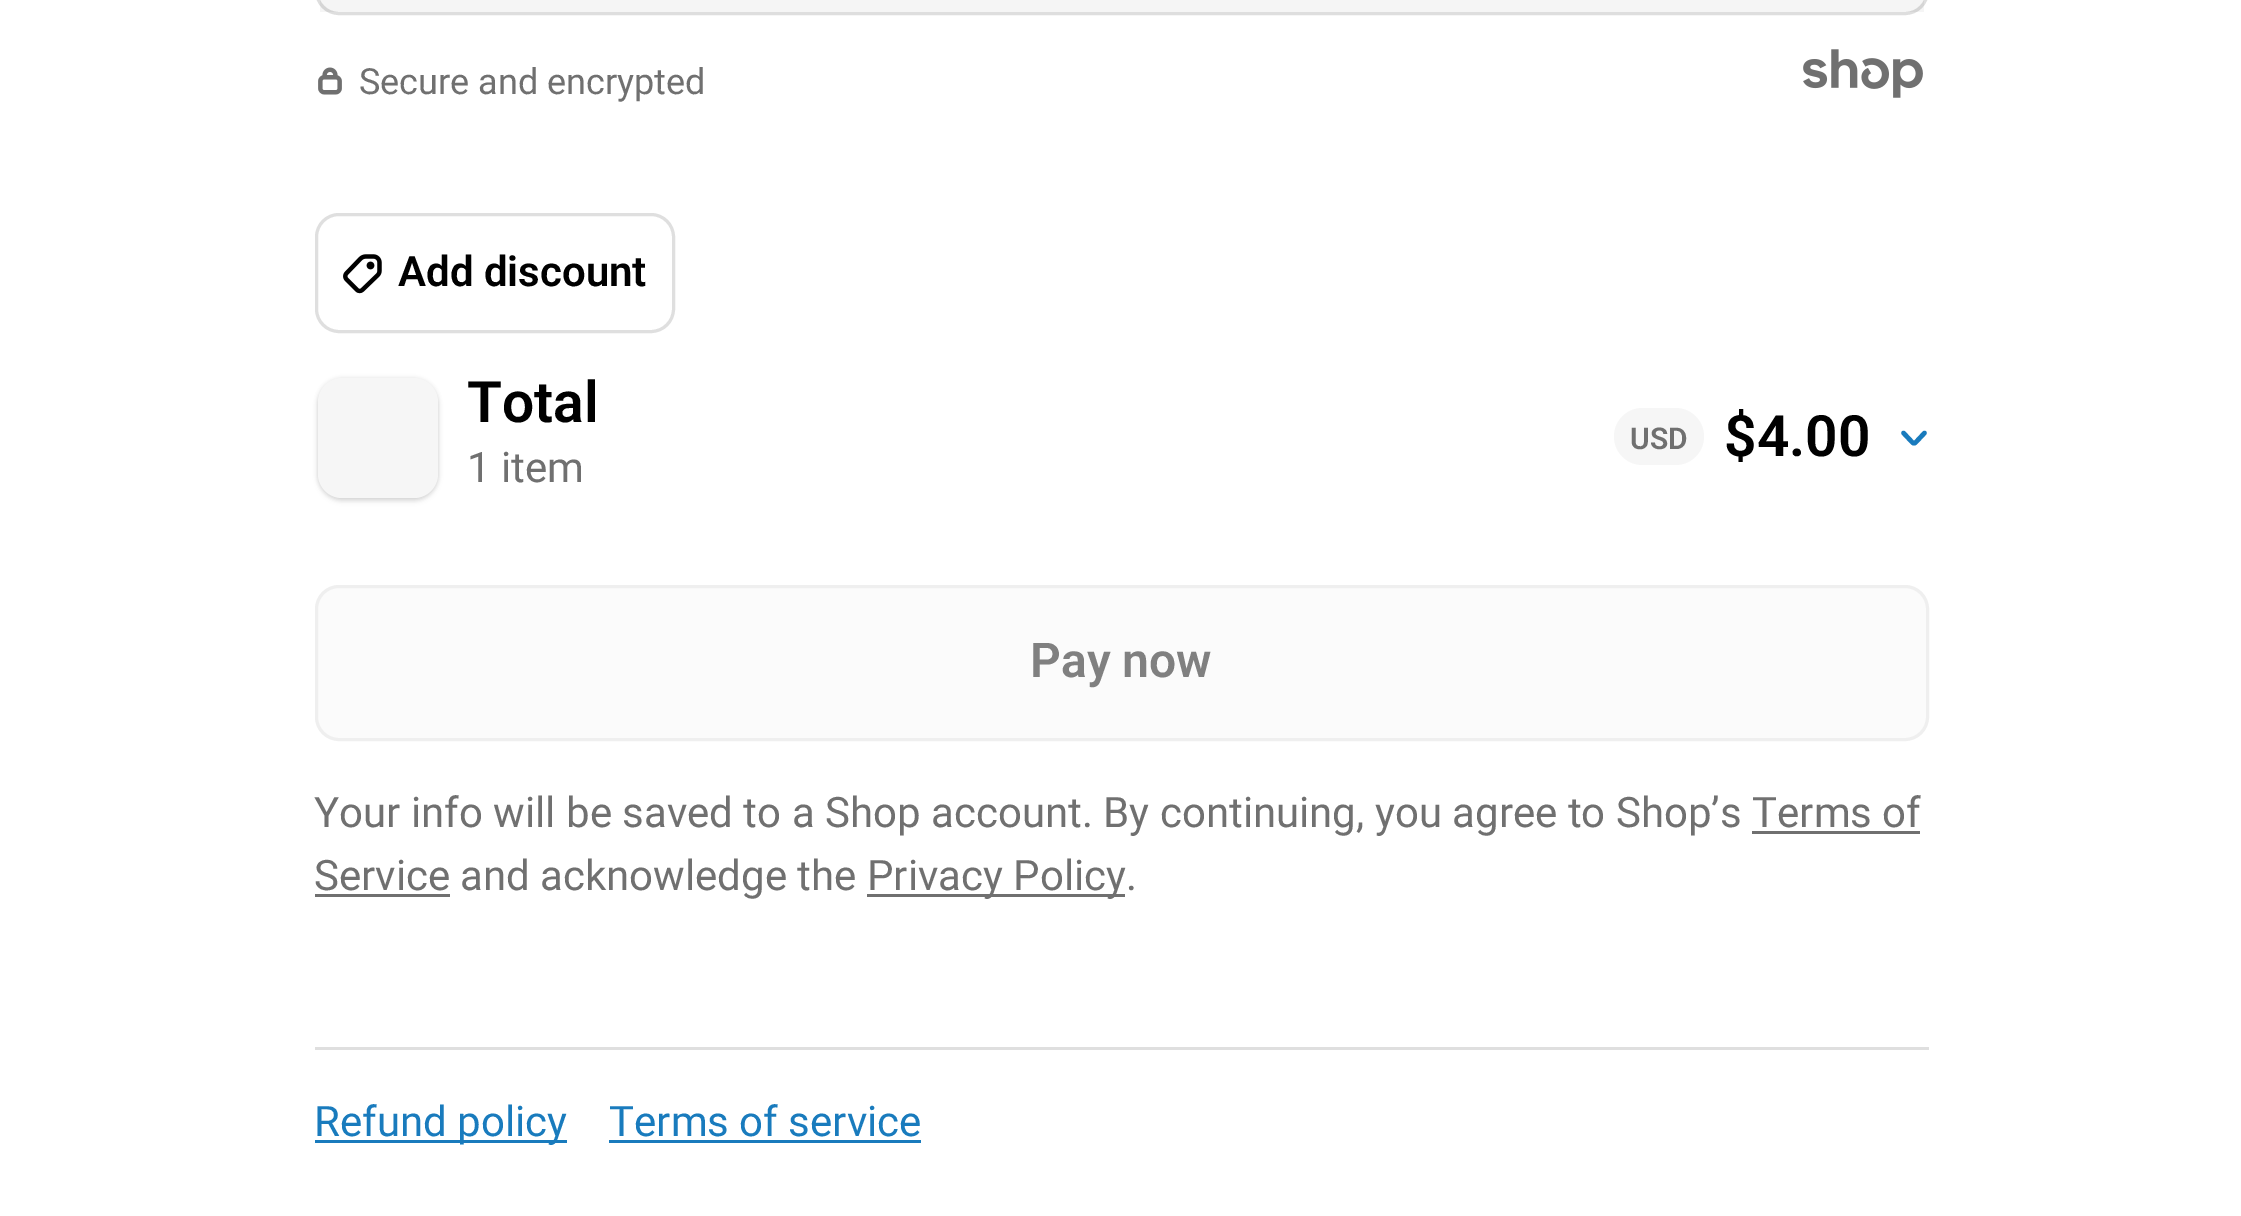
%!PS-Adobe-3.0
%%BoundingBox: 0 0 2241 1216
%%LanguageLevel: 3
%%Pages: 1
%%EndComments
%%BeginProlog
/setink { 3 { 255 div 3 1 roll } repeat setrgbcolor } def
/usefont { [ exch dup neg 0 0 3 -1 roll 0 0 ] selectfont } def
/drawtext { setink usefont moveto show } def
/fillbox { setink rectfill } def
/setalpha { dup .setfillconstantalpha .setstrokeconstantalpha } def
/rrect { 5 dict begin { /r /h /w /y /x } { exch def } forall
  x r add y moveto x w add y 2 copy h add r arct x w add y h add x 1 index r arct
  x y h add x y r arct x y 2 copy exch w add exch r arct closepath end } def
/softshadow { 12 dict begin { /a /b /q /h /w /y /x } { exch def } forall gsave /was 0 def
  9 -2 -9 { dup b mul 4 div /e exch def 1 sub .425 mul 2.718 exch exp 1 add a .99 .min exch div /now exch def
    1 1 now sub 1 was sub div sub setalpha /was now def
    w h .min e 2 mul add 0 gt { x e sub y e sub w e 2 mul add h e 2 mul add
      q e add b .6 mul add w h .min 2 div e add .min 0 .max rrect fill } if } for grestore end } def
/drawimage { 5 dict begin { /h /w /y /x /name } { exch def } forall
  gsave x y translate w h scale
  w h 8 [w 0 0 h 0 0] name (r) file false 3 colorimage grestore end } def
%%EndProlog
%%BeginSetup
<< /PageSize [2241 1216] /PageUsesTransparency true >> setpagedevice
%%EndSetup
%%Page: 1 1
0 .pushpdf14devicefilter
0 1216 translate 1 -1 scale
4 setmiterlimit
0 0 2241 1216 255 255 255 fillbox
222 222 222 setink
3 setlinewidth
316.5 -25.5 1611 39 22.5 rrect stroke
0.04 setalpha
320 0 1604 12 0 0 0 fillbox
1 setalpha
(assets/img1.rgb) 318 67 24 28 drawimage
(Secure and encrypted) 359 94 /Roboto-Regular 36 112 112 112 drawtext
(assets/img2.rgb) 1803 49 120 49 drawimage
223 223 223 setink
316.5 214.5 357 117 22.5 rrect stroke
(assets/img3.rgb) 343 254 39 40 drawimage
(Add discount) 398 286 /Roboto-SemiBold 42 0 0 0 drawtext
318 378 120 120 24 2 0.09 softshadow
318 381 120 120 24 2.5 0.12 softshadow
246 246 246 setink
318 378 120 120 24 rrect fill
(Total) 467 422 /Roboto-SemiBold 57 0 0 0 drawtext
(1 item) 467 482 /Roboto-Regular 42 112 112 112 drawtext
246 246 246 setink
1614 408 90 57 28.5 rrect fill
(USD) 1630 449 /Roboto-SemiBold 30 112 112 112 drawtext
($4.00) 1724 456 /Roboto-SemiBold 57 0 0 0 drawtext
25 123 189 setink
4.5 setlinewidth
1 setlinecap
1 setlinejoin
1924.5 433 moveto 1916.5 441.5 lineto 1914 444 1914 444 1911.5 441.5 curveto 1903.5 433 lineto stroke
251 251 251 setink
316.5 586.5 1611 153 22.5 rrect gsave fill grestore
239 239 239 setink
3 setlinewidth
0 setlinecap
0 setlinejoin
stroke
(Pay now) 1030 677 /Roboto-SemiBold 48 128 128 128 drawtext
(Your info will be saved to a Shop account. By continuing, you agree to Shop’s Terms of) 314 827 /Roboto-Regular 42 112 112 112 drawtext
(Service) 314 890 /Roboto-Regular 42 112 112 112 drawtext
1752 831 168 3 112 112 112 fillbox
315 894 135 3 112 112 112 fillbox
(and acknowledge the) 460 890 /Roboto-Regular 42 112 112 112 drawtext
867 894 258 3 112 112 112 fillbox
(Privacy Policy) 867 890 /Roboto-Regular 42 112 112 112 drawtext
(.) 1126 890 /Roboto-Regular 42 112 112 112 drawtext
315 1047 1614 3 223 223 223 fillbox
315 1140 252 3 25 123 189 fillbox
(Refund policy) 314 1136 /Roboto-Regular 42 25 123 189 drawtext
(Terms of service) 609 1136 /Roboto-Regular 42 25 123 189 drawtext
609 1140 312 3 25 123 189 fillbox
.poppdf14devicefilter showpage
%%EOF
